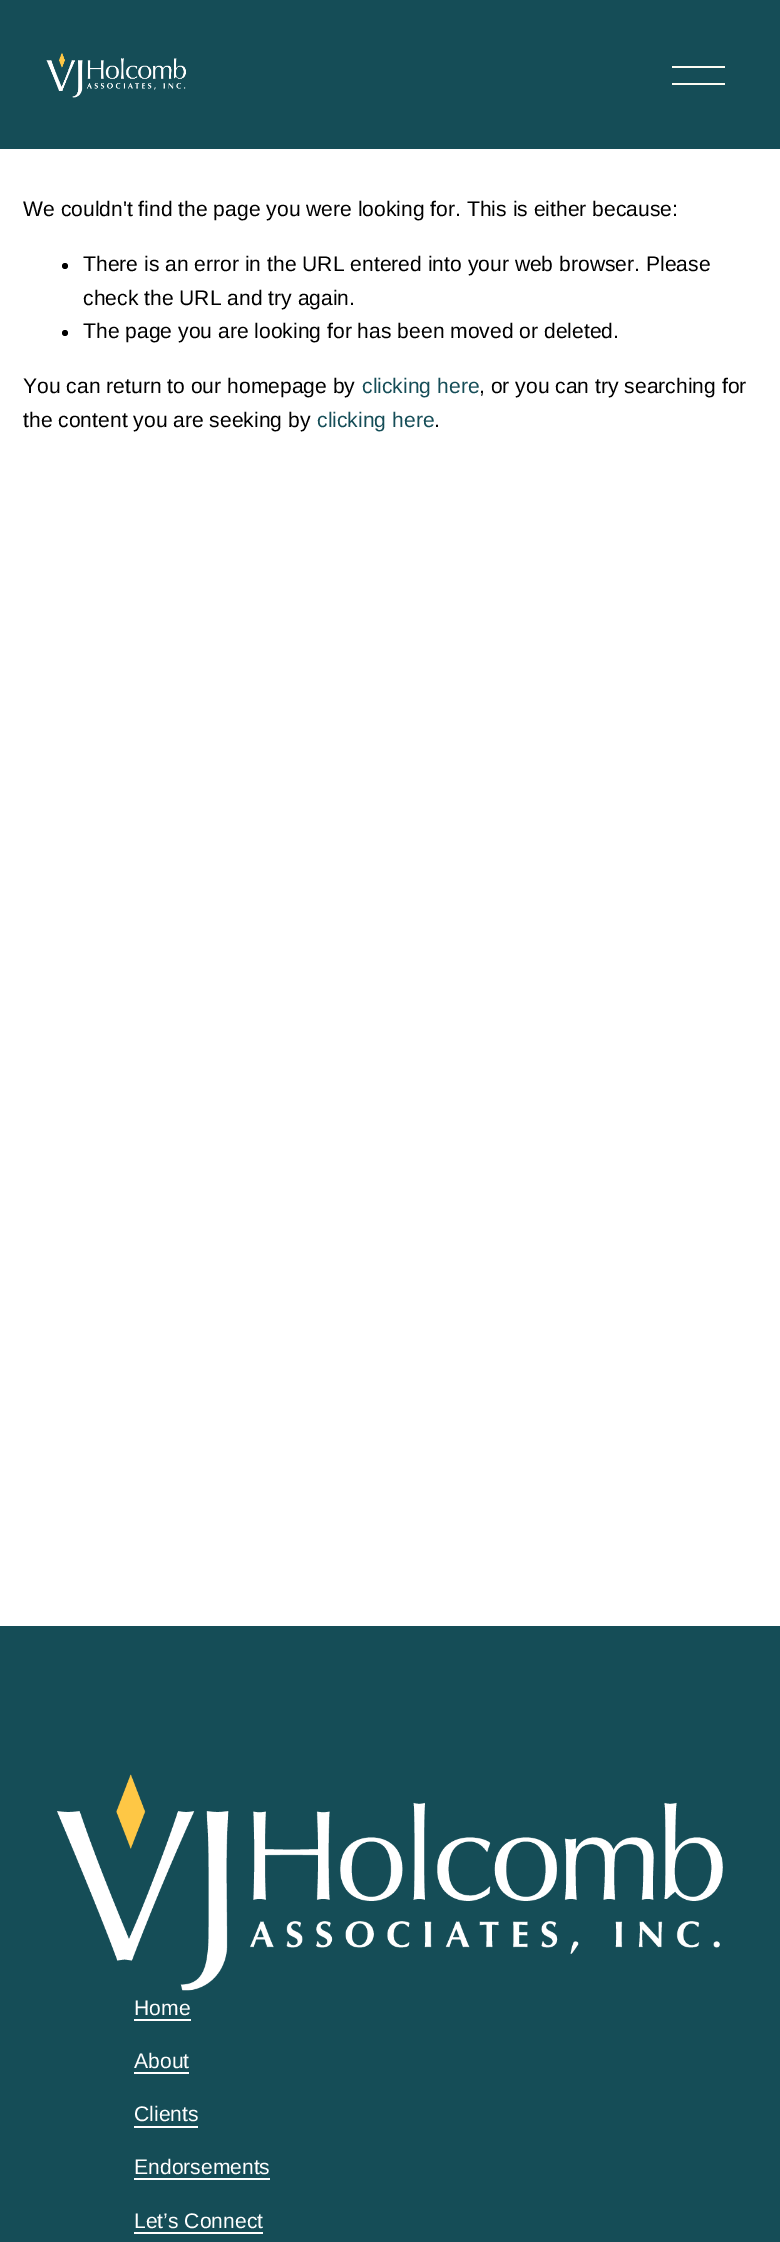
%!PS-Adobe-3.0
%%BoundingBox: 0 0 780 2242
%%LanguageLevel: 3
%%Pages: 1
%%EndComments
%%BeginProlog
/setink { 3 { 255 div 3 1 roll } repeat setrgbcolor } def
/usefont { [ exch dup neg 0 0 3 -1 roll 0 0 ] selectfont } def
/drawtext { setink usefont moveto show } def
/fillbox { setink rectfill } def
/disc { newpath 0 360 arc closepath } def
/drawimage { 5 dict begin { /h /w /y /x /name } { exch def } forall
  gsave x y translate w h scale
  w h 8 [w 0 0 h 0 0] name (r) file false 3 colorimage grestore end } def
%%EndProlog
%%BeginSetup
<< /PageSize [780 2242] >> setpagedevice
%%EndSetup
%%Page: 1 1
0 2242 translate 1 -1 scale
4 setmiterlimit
0 0 780 2242 255 255 255 fillbox
0 0 780 149 21 77 87 fillbox
(assets/img1.rgb) 46 52 140 46 drawimage
672 66 53 2 252 252 243 fillbox
672 83 53 2 252 252 243 fillbox
(We couldn't find the page you were looking for. This is either because:) 23 216 /LiberationSans-Regular 21.1 0 0 0 drawtext
65 266 3 disc fill
(There is an error in the URL entered into your web browser. Please) 83 271 /LiberationSans-Regular 21.1 0 0 0 drawtext
(check the URL and try again.) 83 305 /LiberationSans-Regular 21.1 0 0 0 drawtext
65 333 3 disc fill
(The page you are looking for has been moved or deleted.) 83 338 /LiberationSans-Regular 21.1 0 0 0 drawtext
(You can return to our homepage by) 23 393 /LiberationSans-Regular 21.1 0 0 0 drawtext
(clicking here) 362 393 /LiberationSans-Regular 21.1 21 77 87 drawtext
(, or you can try searching for) 479 393 /LiberationSans-Regular 21.1 0 0 0 drawtext
(the content you are seeking by) 23 427 /LiberationSans-Regular 21.1 0 0 0 drawtext
(clicking here) 317 427 /LiberationSans-Regular 21.1 21 77 87 drawtext
(.) 434 427 /LiberationSans-Regular 21.1 0 0 0 drawtext
0 1626 780 616 21 77 87 fillbox
(assets/img2.rgb) 57 1774 666 217 drawimage
(Home) 134 2015 /LiberationSans-Regular 21.1 255 255 255 drawtext
134 2019 57 2 255 255 255 fillbox
(About) 134 2068 /LiberationSans-Regular 21.1 255 255 255 drawtext
134 2072 55 2 255 255 255 fillbox
(Clients) 134 2121 /LiberationSans-Regular 21.1 255 255 255 drawtext
134 2126 64 2 255 255 255 fillbox
(Endorsements) 134 2174 /LiberationSans-Regular 21.1 255 255 255 drawtext
134 2178 136 2 255 255 255 fillbox
(Let’s Connect) 134 2228 /LiberationSans-Regular 21.1 255 255 255 drawtext
134 2232 129 2 255 255 255 fillbox
showpage
%%EOF
